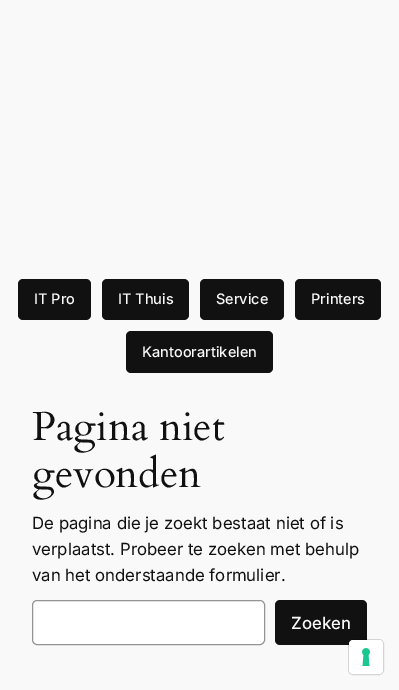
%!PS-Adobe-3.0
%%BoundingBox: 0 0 399 690
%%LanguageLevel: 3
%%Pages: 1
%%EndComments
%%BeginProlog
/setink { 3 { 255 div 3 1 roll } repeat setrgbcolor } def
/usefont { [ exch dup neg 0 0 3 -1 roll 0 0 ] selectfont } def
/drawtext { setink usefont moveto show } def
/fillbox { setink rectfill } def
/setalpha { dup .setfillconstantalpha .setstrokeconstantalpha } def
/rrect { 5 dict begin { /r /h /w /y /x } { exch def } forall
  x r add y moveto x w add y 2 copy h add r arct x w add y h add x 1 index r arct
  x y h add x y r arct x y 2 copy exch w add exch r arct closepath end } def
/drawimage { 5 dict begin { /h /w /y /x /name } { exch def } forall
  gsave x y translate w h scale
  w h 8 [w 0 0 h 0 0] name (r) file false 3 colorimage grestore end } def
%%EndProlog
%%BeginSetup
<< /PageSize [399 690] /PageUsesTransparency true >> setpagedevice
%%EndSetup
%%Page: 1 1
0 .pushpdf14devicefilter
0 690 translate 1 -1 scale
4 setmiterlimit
0 0 399 690 249 249 249 fillbox
17 17 17 setink
18 279 73 41 5 rrect fill
(IT Pro) 34 304 /Inter-Medium 14.5 249 249 249 drawtext
17 17 17 setink
102 279 87 41 5 rrect fill
(IT Thuis) 118 304 /Inter-Medium 14.5 249 249 249 drawtext
17 17 17 setink
200 279 84 41 5 rrect fill
(Service) 216 304 /Inter-Medium 14.5 249 249 249 drawtext
17 17 17 setink
295 279 86 41 5 rrect fill
(Printers) 311 304 /Inter-Medium 14.5 249 249 249 drawtext
17 17 17 setink
126 331 147 42 5 rrect fill
(Kantoorartikelen) 142 357 /Inter-Medium 14.5 249 249 249 drawtext
(Pagina niet) 32 440 /Cardo-Regular 40.5 17 17 17 drawtext
(gevonden) 32 487 /Cardo-Regular 40.5 17 17 17 drawtext
(De pagina die je zoekt bestaat niet of is) 32 529 /Inter-Regular 16.75 17 17 17 drawtext
(verplaatst. Probeer te zoeken met behulp) 32 555 /Inter-Regular 16.75 17 17 17 drawtext
(van het onderstaande formulier.) 32 581 /Inter-Regular 16.75 17 17 17 drawtext
255 255 255 setink
32.5 600.5 232 44 4.5 rrect gsave fill grestore
148 148 148 setink
stroke
17 17 17 setink
275 600 92 45 5 rrect fill
(Zoeken) 291 629 /Inter-Medium 16.75 249 249 249 drawtext
0.15 setalpha
0 0 0 setink
348.5 639.5 35 35 4.5 rrect stroke
1 setalpha
255 255 255 setink
349 640 34 34 4 rrect fill
(assets/img1.rgb) 362 648 8 18 drawimage
.poppdf14devicefilter showpage
%%EOF
